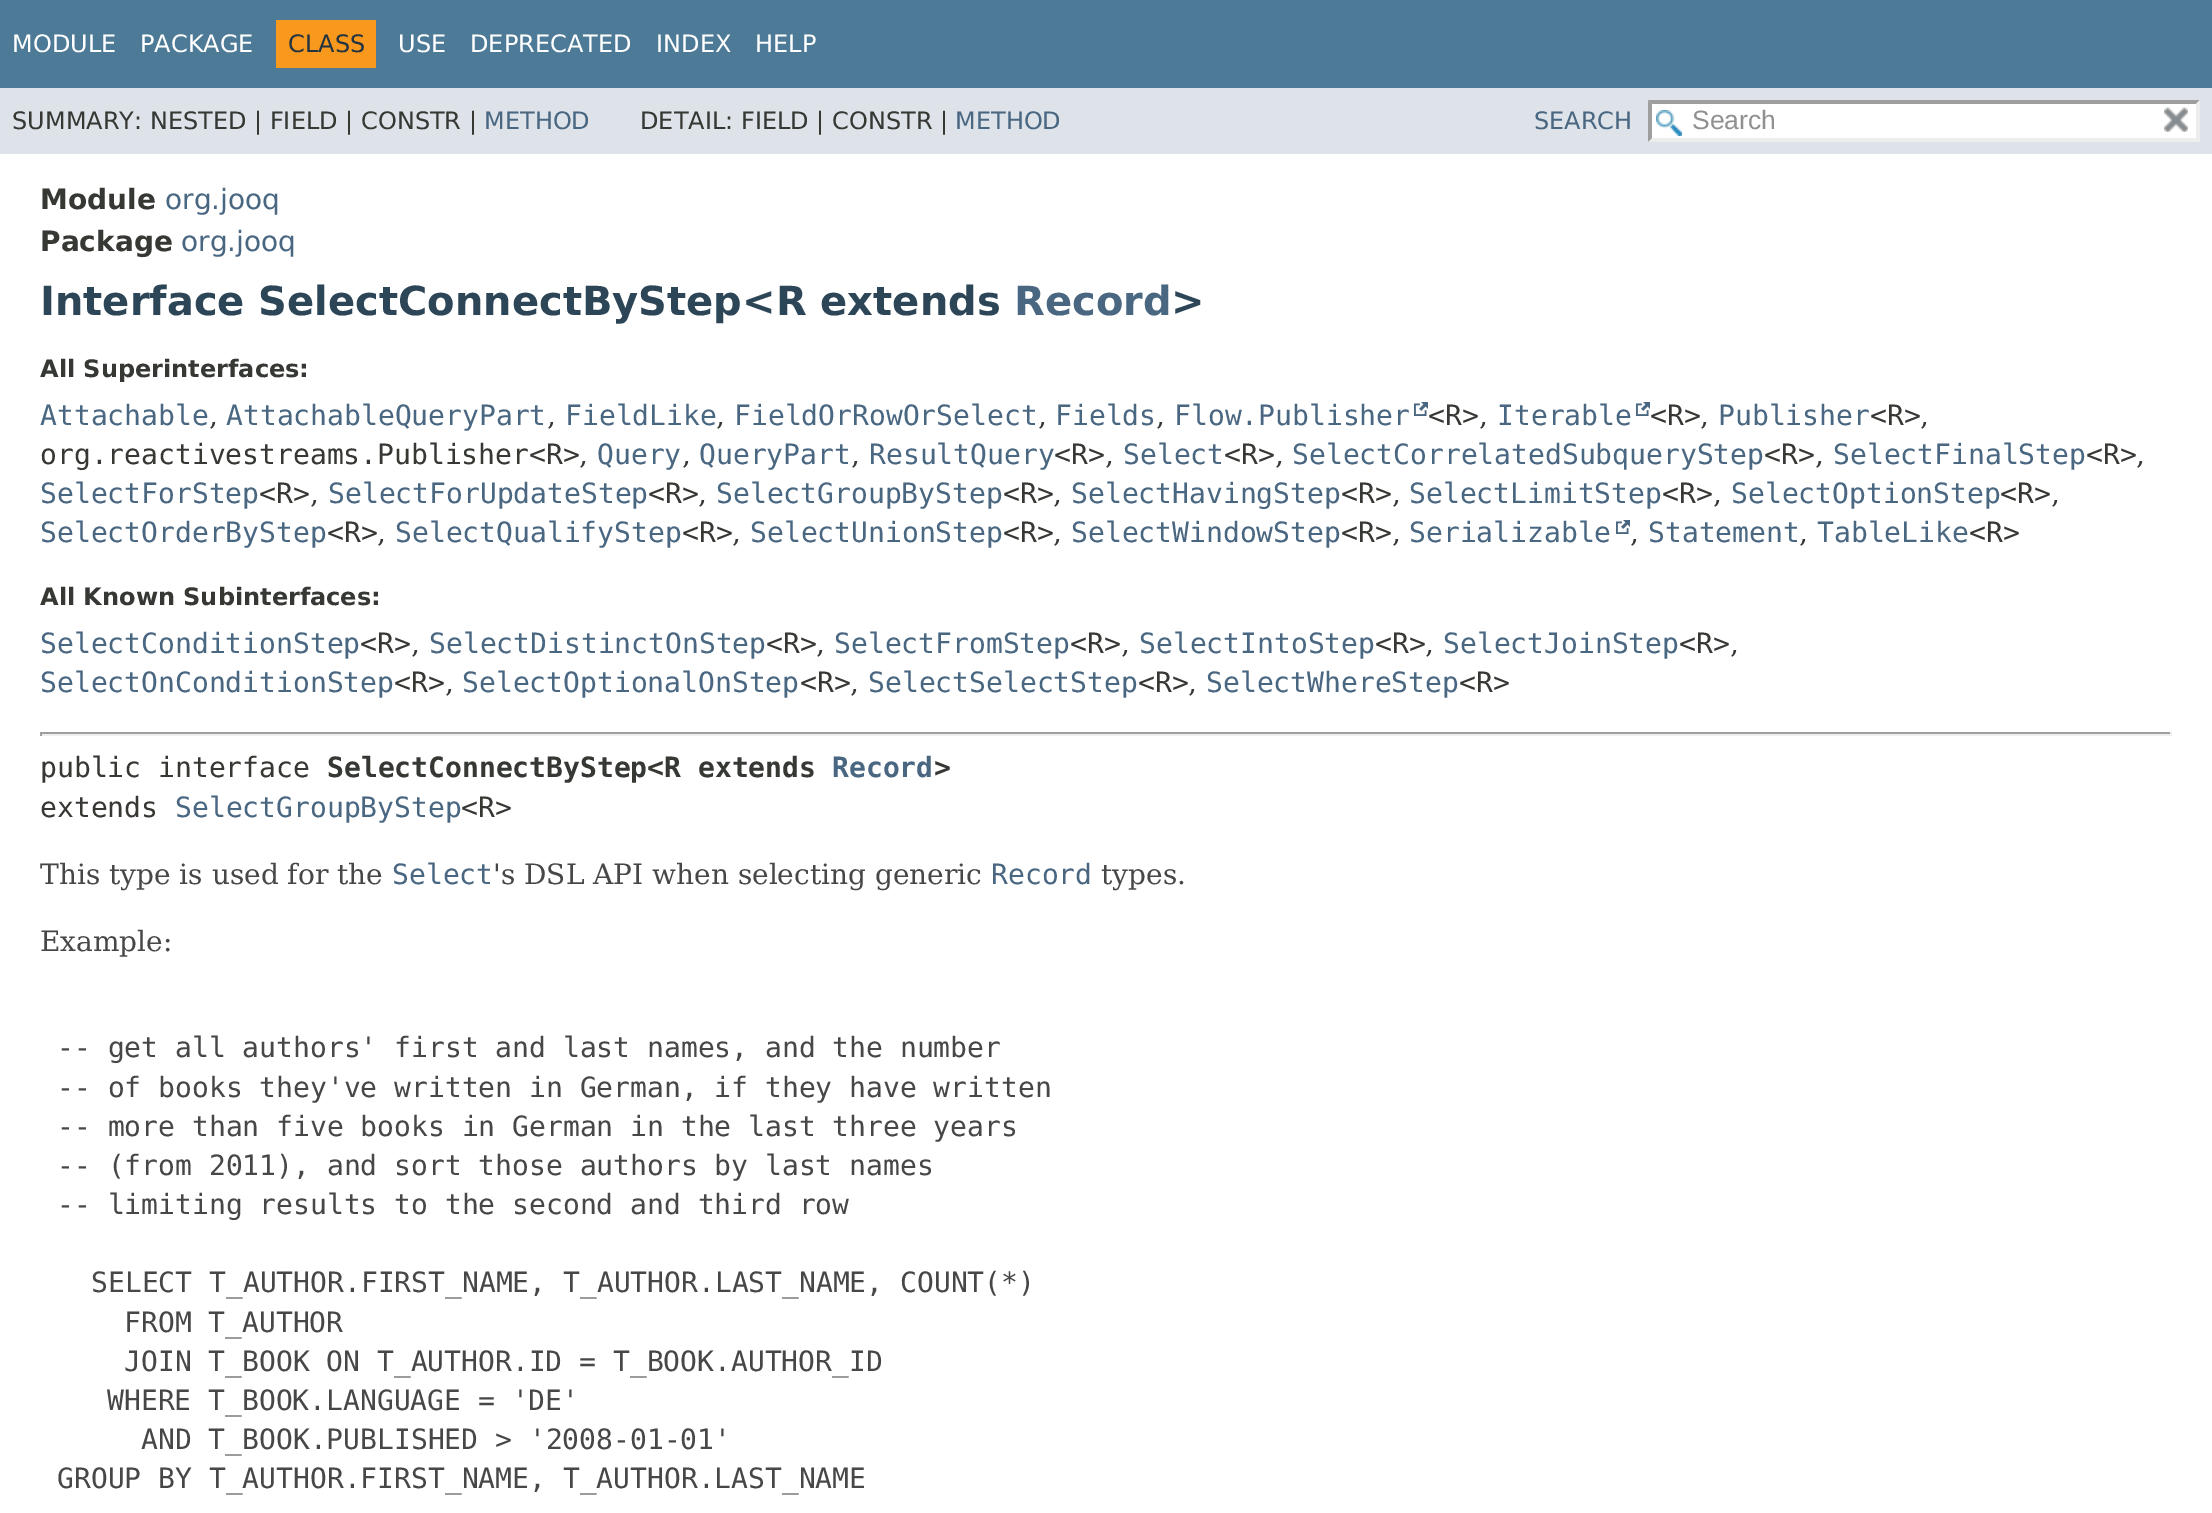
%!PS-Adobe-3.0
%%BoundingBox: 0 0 2212 1513
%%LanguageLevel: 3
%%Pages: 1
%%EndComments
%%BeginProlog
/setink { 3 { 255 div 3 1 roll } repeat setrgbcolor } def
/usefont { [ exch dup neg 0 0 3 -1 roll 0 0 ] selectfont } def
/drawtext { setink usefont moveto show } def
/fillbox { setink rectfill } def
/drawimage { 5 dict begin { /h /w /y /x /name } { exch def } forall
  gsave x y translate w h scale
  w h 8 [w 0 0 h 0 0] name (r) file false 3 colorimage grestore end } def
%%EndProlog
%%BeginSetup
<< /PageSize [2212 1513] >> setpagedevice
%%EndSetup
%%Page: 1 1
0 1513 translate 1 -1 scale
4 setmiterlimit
0 0 2212 1513 255 255 255 fillbox
0 0 2212 88 77 122 151 fillbox
(MODULE) 12 52 /DejaVuSans-Regular 24 255 255 255 drawtext
(PACKAGE) 140 52 /DejaVuSans-Regular 24 255 255 255 drawtext
276 20 100 48 248 152 29 fillbox
(CLASS) 288 52 /DejaVuSans-Regular 24 37 52 65 drawtext
(USE) 398 52 /DejaVuSans-Regular 24 255 255 255 drawtext
(DEPRECATED) 470 52 /DejaVuSans-Regular 24 255 255 255 drawtext
(INDEX) 656 52 /DejaVuSans-Regular 24 255 255 255 drawtext
(HELP) 755 52 /DejaVuSans-Regular 24 255 255 255 drawtext
0 88 2212 66 222 227 233 fillbox
(SUMMARY: NESTED | FIELD | CONSTR |) 12 129 /DejaVuSans-Regular 24 53 56 51 drawtext
(METHOD) 484 129 /DejaVuSans-Regular 24 74 103 130 drawtext
(DETAIL: FIELD | CONSTR |) 640 129 /DejaVuSans-Regular 24 53 56 51 drawtext
(METHOD) 955 129 /DejaVuSans-Regular 24 74 103 130 drawtext
(SEARCH) 1534 129 /DejaVuSans-Regular 24 74 103 130 drawtext
1648 100 552 42 255 255 255 fillbox
(assets/img1.rgb) 1656 110 26 26 drawimage
158 158 158 setink
1648 100 moveto 2200 100 lineto 2196 104 lineto 1652 104 lineto closepath fill
237 237 237 setink
2200 100 moveto 2200 142 lineto 2196 138 lineto 2196 104 lineto closepath fill
2200 142 moveto 1648 142 lineto 1652 138 lineto 2196 138 lineto closepath fill
158 158 158 setink
1648 142 moveto 1648 100 lineto 1652 104 lineto 1652 138 lineto closepath fill
(Search) 1692 129 /LiberationSans-Regular 26.5 144 144 144 drawtext
(assets/img2.rgb) 2164 107 24 25 drawimage
(Module) 40 209 /DejaVuSans-Bold 28 53 56 51 drawtext
(org.jooq) 165 209 /DejaVuSans-Regular 28 74 103 130 drawtext
(Package) 40 251 /DejaVuSans-Bold 28 53 56 51 drawtext
(org.jooq) 181 251 /DejaVuSans-Regular 28 74 103 130 drawtext
(Interface SelectConnectByStep<R extends) 40 315 /DejaVuSans-Bold 40 44 69 87 drawtext
(Record) 1014 315 /DejaVuSans-Bold 40 74 103 130 drawtext
(>) 1171 315 /DejaVuSans-Bold 40 44 69 87 drawtext
(All Superinterfaces:) 40 377 /DejaVuSans-Bold 24 53 56 51 drawtext
(Attachable) 40 425 /DejaVuSansMono-Regular 28 74 103 130 drawtext
(,) 209 425 /DejaVuSerif-Regular 28 53 56 51 drawtext
(AttachableQueryPart) 226 425 /DejaVuSansMono-Regular 28 74 103 130 drawtext
(,) 547 425 /DejaVuSerif-Regular 28 53 56 51 drawtext
(FieldLike) 565 425 /DejaVuSansMono-Regular 28 74 103 130 drawtext
(,) 716 425 /DejaVuSerif-Regular 28 53 56 51 drawtext
(FieldOrRowOrSelect) 734 425 /DejaVuSansMono-Regular 28 74 103 130 drawtext
(,) 1038 425 /DejaVuSerif-Regular 28 53 56 51 drawtext
(Fields) 1055 425 /DejaVuSansMono-Regular 28 74 103 130 drawtext
(,) 1156 425 /DejaVuSerif-Regular 28 53 56 51 drawtext
(Flow.Publisher) 1174 425 /DejaVuSansMono-Regular 28 74 103 130 drawtext
(assets/img3.rgb) 1414 402 14 14 drawimage
(<R>) 1428 425 /DejaVuSansMono-Regular 28 53 56 51 drawtext
(,) 1479 425 /DejaVuSerif-Regular 28 53 56 51 drawtext
(Iterable) 1497 425 /DejaVuSansMono-Regular 28 74 103 130 drawtext
(assets/img3.rgb) 1636 402 14 14 drawimage
(<R>) 1650 425 /DejaVuSansMono-Regular 28 53 56 51 drawtext
(,) 1700 425 /DejaVuSerif-Regular 28 53 56 51 drawtext
(Publisher) 1718 425 /DejaVuSansMono-Regular 28 74 103 130 drawtext
(<R>) 1870 425 /DejaVuSansMono-Regular 28 53 56 51 drawtext
(,) 1920 425 /DejaVuSerif-Regular 28 53 56 51 drawtext
(org.reactivestreams.Publisher<R>) 40 464 /DejaVuSansMono-Regular 28 53 56 51 drawtext
(,) 579 464 /DejaVuSerif-Regular 28 53 56 51 drawtext
(Query) 597 464 /DejaVuSansMono-Regular 28 74 103 130 drawtext
(,) 682 464 /DejaVuSerif-Regular 28 53 56 51 drawtext
(QueryPart) 699 464 /DejaVuSansMono-Regular 28 74 103 130 drawtext
(,) 851 464 /DejaVuSerif-Regular 28 53 56 51 drawtext
(ResultQuery) 869 464 /DejaVuSansMono-Regular 28 74 103 130 drawtext
(<R>) 1054 464 /DejaVuSansMono-Regular 28 53 56 51 drawtext
(,) 1105 464 /DejaVuSerif-Regular 28 53 56 51 drawtext
(Select) 1123 464 /DejaVuSansMono-Regular 28 74 103 130 drawtext
(<R>) 1224 464 /DejaVuSansMono-Regular 28 53 56 51 drawtext
(,) 1275 464 /DejaVuSerif-Regular 28 53 56 51 drawtext
(SelectCorrelatedSubqueryStep) 1292 464 /DejaVuSansMono-Regular 28 74 103 130 drawtext
(<R>) 1764 464 /DejaVuSansMono-Regular 28 53 56 51 drawtext
(,) 1815 464 /DejaVuSerif-Regular 28 53 56 51 drawtext
(SelectFinalStep) 1833 464 /DejaVuSansMono-Regular 28 74 103 130 drawtext
(<R>) 2086 464 /DejaVuSansMono-Regular 28 53 56 51 drawtext
(,) 2136 464 /DejaVuSerif-Regular 28 53 56 51 drawtext
(SelectForStep) 40 503 /DejaVuSansMono-Regular 28 74 103 130 drawtext
(<R>) 259 503 /DejaVuSansMono-Regular 28 53 56 51 drawtext
(,) 310 503 /DejaVuSerif-Regular 28 53 56 51 drawtext
(SelectForUpdateStep) 328 503 /DejaVuSansMono-Regular 28 74 103 130 drawtext
(<R>) 648 503 /DejaVuSansMono-Regular 28 53 56 51 drawtext
(,) 698 503 /DejaVuSerif-Regular 28 53 56 51 drawtext
(SelectGroupByStep) 716 503 /DejaVuSansMono-Regular 28 74 103 130 drawtext
(<R>) 1003 503 /DejaVuSansMono-Regular 28 53 56 51 drawtext
(,) 1053 503 /DejaVuSerif-Regular 28 53 56 51 drawtext
(SelectHavingStep) 1071 503 /DejaVuSansMono-Regular 28 74 103 130 drawtext
(<R>) 1341 503 /DejaVuSansMono-Regular 28 53 56 51 drawtext
(,) 1392 503 /DejaVuSerif-Regular 28 53 56 51 drawtext
(SelectLimitStep) 1409 503 /DejaVuSansMono-Regular 28 74 103 130 drawtext
(<R>) 1662 503 /DejaVuSansMono-Regular 28 53 56 51 drawtext
(,) 1713 503 /DejaVuSerif-Regular 28 53 56 51 drawtext
(SelectOptionStep) 1731 503 /DejaVuSansMono-Regular 28 74 103 130 drawtext
(<R>) 2000 503 /DejaVuSansMono-Regular 28 53 56 51 drawtext
(,) 2051 503 /DejaVuSerif-Regular 28 53 56 51 drawtext
(SelectOrderByStep) 40 542 /DejaVuSansMono-Regular 28 74 103 130 drawtext
(<R>) 327 542 /DejaVuSansMono-Regular 28 53 56 51 drawtext
(,) 377 542 /DejaVuSerif-Regular 28 53 56 51 drawtext
(SelectQualifyStep) 395 542 /DejaVuSansMono-Regular 28 74 103 130 drawtext
(<R>) 682 542 /DejaVuSansMono-Regular 28 53 56 51 drawtext
(,) 732 542 /DejaVuSerif-Regular 28 53 56 51 drawtext
(SelectUnionStep) 750 542 /DejaVuSansMono-Regular 28 74 103 130 drawtext
(<R>) 1003 542 /DejaVuSansMono-Regular 28 53 56 51 drawtext
(,) 1053 542 /DejaVuSerif-Regular 28 53 56 51 drawtext
(SelectWindowStep) 1071 542 /DejaVuSansMono-Regular 28 74 103 130 drawtext
(<R>) 1341 542 /DejaVuSansMono-Regular 28 53 56 51 drawtext
(,) 1392 542 /DejaVuSerif-Regular 28 53 56 51 drawtext
(Serializable) 1409 542 /DejaVuSansMono-Regular 28 74 103 130 drawtext
(assets/img3.rgb) 1616 520 14 14 drawimage
(,) 1630 542 /DejaVuSerif-Regular 28 53 56 51 drawtext
(Statement) 1648 542 /DejaVuSansMono-Regular 28 74 103 130 drawtext
(,) 1799 542 /DejaVuSerif-Regular 28 53 56 51 drawtext
(TableLike) 1817 542 /DejaVuSansMono-Regular 28 74 103 130 drawtext
(<R>) 1969 542 /DejaVuSansMono-Regular 28 53 56 51 drawtext
(All Known Subinterfaces:) 40 605 /DejaVuSans-Bold 24 53 56 51 drawtext
(SelectConditionStep) 40 653 /DejaVuSansMono-Regular 28 74 103 130 drawtext
(<R>) 360 653 /DejaVuSansMono-Regular 28 53 56 51 drawtext
(,) 411 653 /DejaVuSerif-Regular 28 53 56 51 drawtext
(SelectDistinctOnStep) 429 653 /DejaVuSansMono-Regular 28 74 103 130 drawtext
(<R>) 766 653 /DejaVuSansMono-Regular 28 53 56 51 drawtext
(,) 816 653 /DejaVuSerif-Regular 28 53 56 51 drawtext
(SelectFromStep) 834 653 /DejaVuSansMono-Regular 28 74 103 130 drawtext
(<R>) 1070 653 /DejaVuSansMono-Regular 28 53 56 51 drawtext
(,) 1121 653 /DejaVuSerif-Regular 28 53 56 51 drawtext
(SelectIntoStep) 1139 653 /DejaVuSansMono-Regular 28 74 103 130 drawtext
(<R>) 1375 653 /DejaVuSansMono-Regular 28 53 56 51 drawtext
(,) 1425 653 /DejaVuSerif-Regular 28 53 56 51 drawtext
(SelectJoinStep) 1443 653 /DejaVuSansMono-Regular 28 74 103 130 drawtext
(<R>) 1679 653 /DejaVuSansMono-Regular 28 53 56 51 drawtext
(,) 1730 653 /DejaVuSerif-Regular 28 53 56 51 drawtext
(SelectOnConditionStep) 40 692 /DejaVuSansMono-Regular 28 74 103 130 drawtext
(<R>) 394 692 /DejaVuSansMono-Regular 28 53 56 51 drawtext
(,) 445 692 /DejaVuSerif-Regular 28 53 56 51 drawtext
(SelectOptionalOnStep) 462 692 /DejaVuSansMono-Regular 28 74 103 130 drawtext
(<R>) 800 692 /DejaVuSansMono-Regular 28 53 56 51 drawtext
(,) 850 692 /DejaVuSerif-Regular 28 53 56 51 drawtext
(SelectSelectStep) 868 692 /DejaVuSansMono-Regular 28 74 103 130 drawtext
(<R>) 1138 692 /DejaVuSansMono-Regular 28 53 56 51 drawtext
(,) 1188 692 /DejaVuSerif-Regular 28 53 56 51 drawtext
(SelectWhereStep) 1206 692 /DejaVuSansMono-Regular 28 74 103 130 drawtext
(<R>) 1459 692 /DejaVuSansMono-Regular 28 53 56 51 drawtext
40 732 2132 2 159 159 159 fillbox
2170 732 2 4 238 238 238 fillbox
40 734 2132 2 238 238 238 fillbox
40 732 2 4 159 159 159 fillbox
(public interface) 40 777 /DejaVuSansMono-Regular 28 53 56 51 drawtext
(SelectConnectByStep<R extends) 327 777 /DejaVuSansMono-Bold 28 53 56 51 drawtext
(Record) 832 777 /DejaVuSansMono-Bold 28 74 103 130 drawtext
(>) 934 777 /DejaVuSansMono-Bold 28 53 56 51 drawtext
(extends) 40 817 /DejaVuSansMono-Regular 28 53 56 51 drawtext
(SelectGroupByStep) 175 817 /DejaVuSansMono-Regular 28 74 103 130 drawtext
(<R>) 461 817 /DejaVuSansMono-Regular 28 53 56 51 drawtext
(This type is used for the) 40 884 /DejaVuSerif-Regular 28 71 71 71 drawtext
(Select) 392 884 /DejaVuSansMono-Regular 28 74 103 130 drawtext
('s DSL API when selecting generic) 493 884 /DejaVuSerif-Regular 28 71 71 71 drawtext
(Record) 991 884 /DejaVuSansMono-Regular 28 74 103 130 drawtext
(types.) 1101 884 /DejaVuSerif-Regular 28 71 71 71 drawtext
(Example:) 40 951 /DejaVuSerif-Regular 28 71 71 71 drawtext
(-- get all authors' first and last names, and the number) 57 1057 /DejaVuSansMono-Regular 28 71 71 71 drawtext
(-- of books they've written in German, if they have written) 57 1097 /DejaVuSansMono-Regular 28 71 71 71 drawtext
(-- more than five books in German in the last three years) 57 1136 /DejaVuSansMono-Regular 28 71 71 71 drawtext
(-- \(from 2011\), and sort those authors by last names) 57 1175 /DejaVuSansMono-Regular 28 71 71 71 drawtext
(-- limiting results to the second and third row) 57 1214 /DejaVuSansMono-Regular 28 71 71 71 drawtext
(SELECT T_AUTHOR.FIRST_NAME, T_AUTHOR.LAST_NAME, COUNT\(*\)) 91 1292 /DejaVuSansMono-Regular 28 71 71 71 drawtext
(FROM T_AUTHOR) 124 1332 /DejaVuSansMono-Regular 28 71 71 71 drawtext
(JOIN T_BOOK ON T_AUTHOR.ID = T_BOOK.AUTHOR_ID) 124 1371 /DejaVuSansMono-Regular 28 71 71 71 drawtext
(WHERE T_BOOK.LANGUAGE = 'DE') 107 1410 /DejaVuSansMono-Regular 28 71 71 71 drawtext
(AND T_BOOK.PUBLISHED > '2008-01-01') 141 1449 /DejaVuSansMono-Regular 28 71 71 71 drawtext
(GROUP BY T_AUTHOR.FIRST_NAME, T_AUTHOR.LAST_NAME) 57 1488 /DejaVuSansMono-Regular 28 71 71 71 drawtext
showpage
%%EOF
